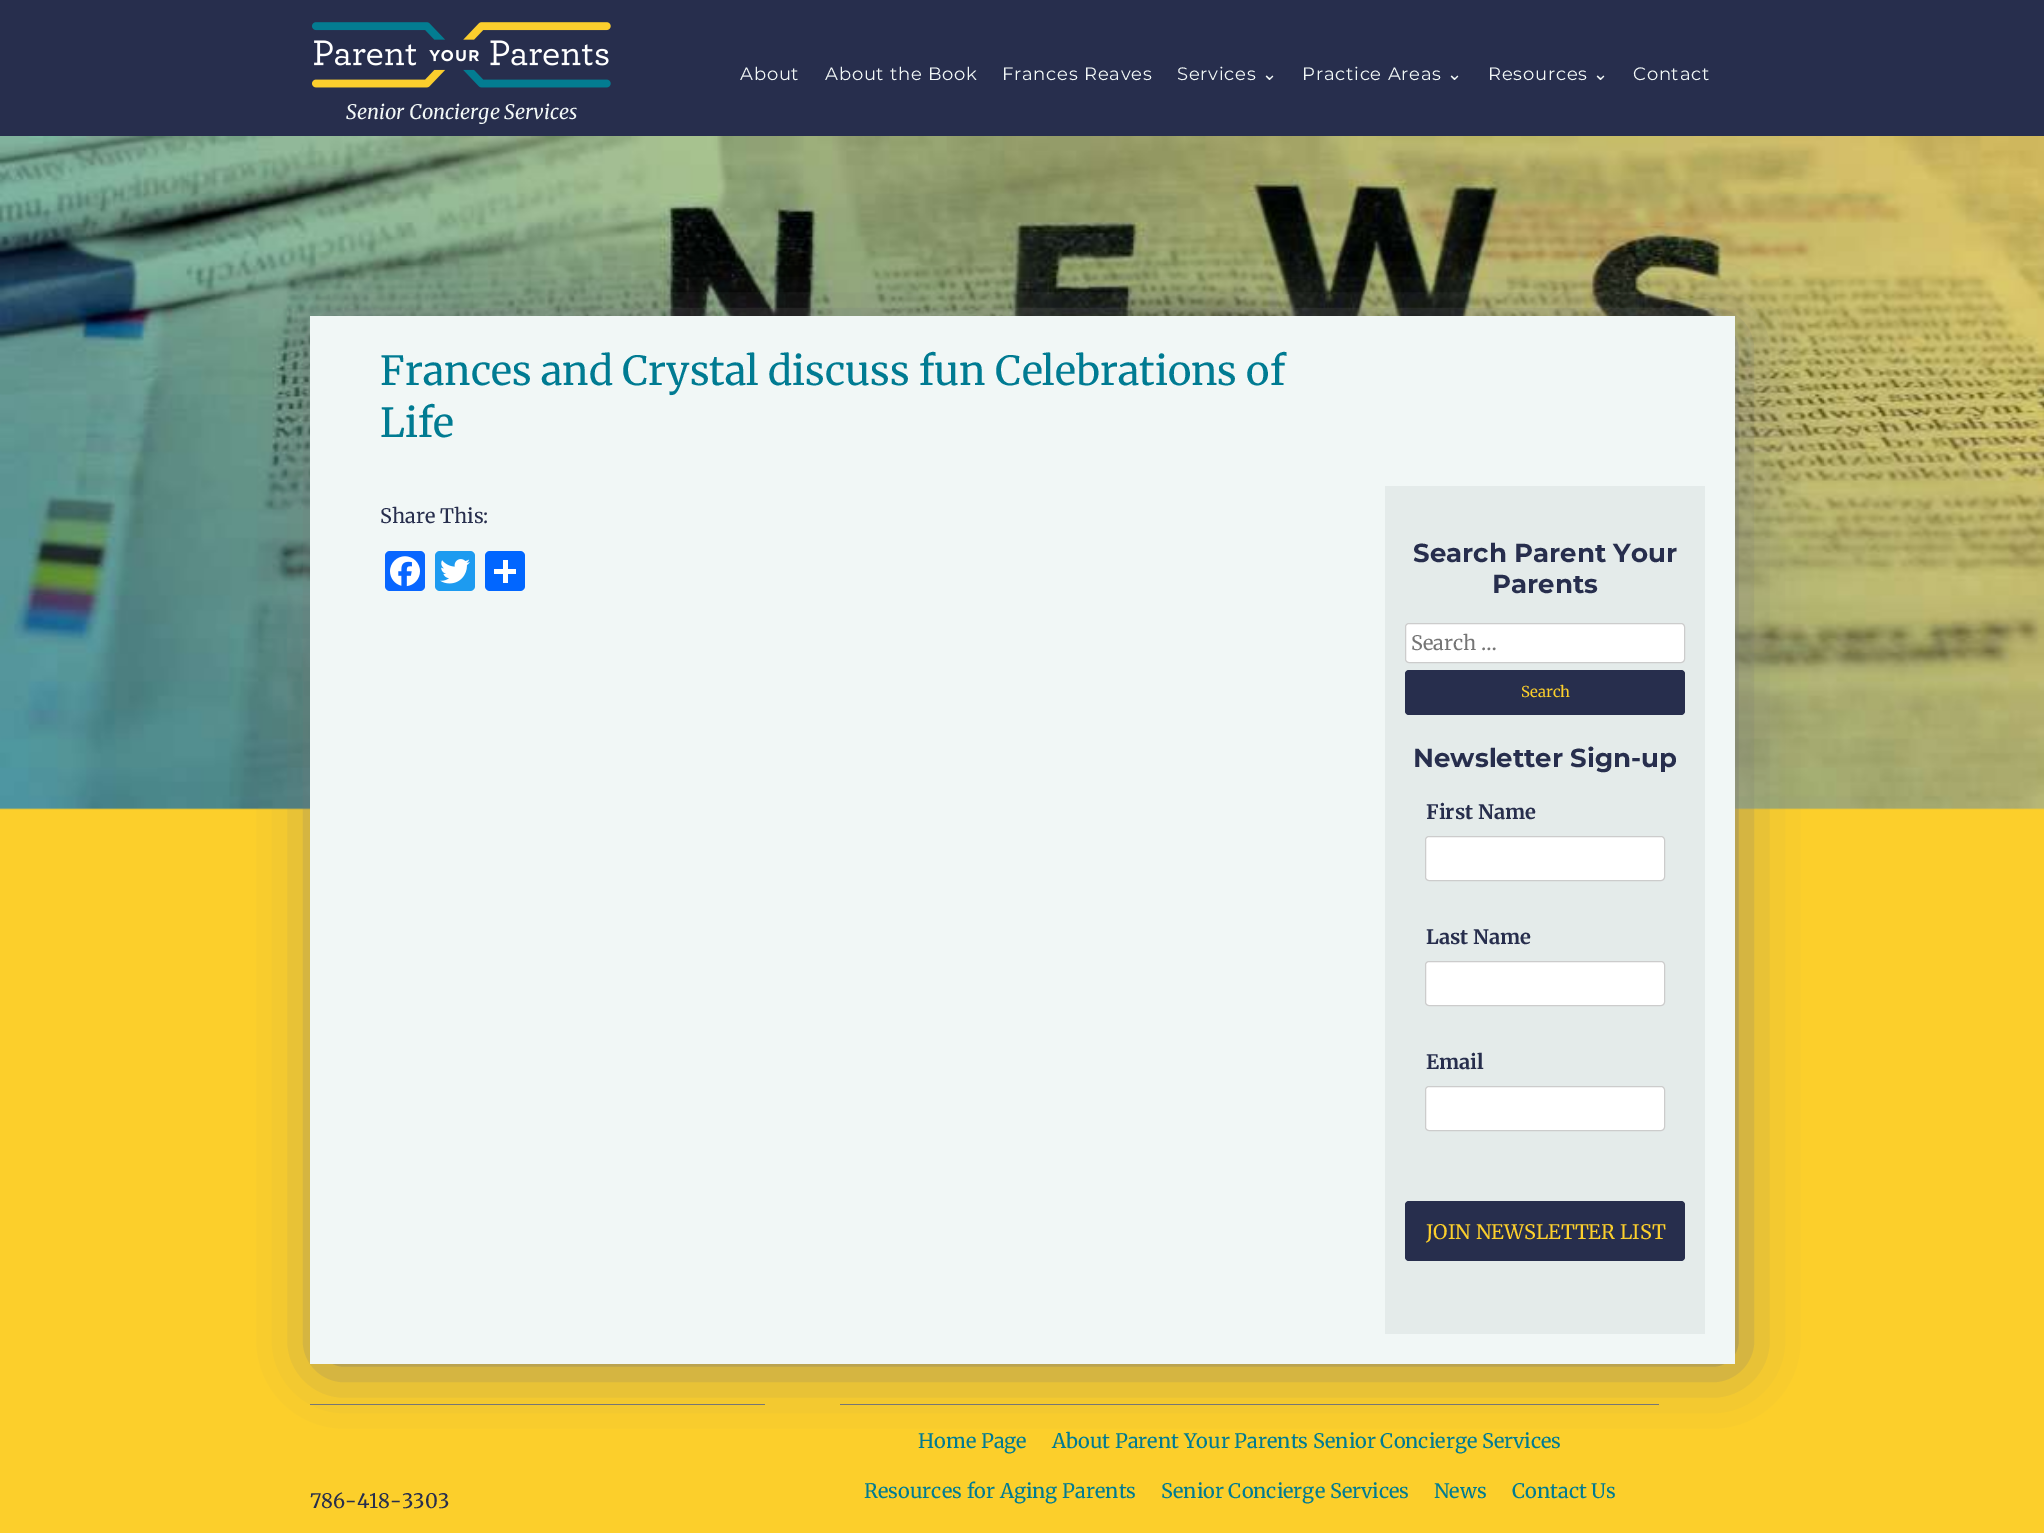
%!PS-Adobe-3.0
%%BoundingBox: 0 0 2044 1533
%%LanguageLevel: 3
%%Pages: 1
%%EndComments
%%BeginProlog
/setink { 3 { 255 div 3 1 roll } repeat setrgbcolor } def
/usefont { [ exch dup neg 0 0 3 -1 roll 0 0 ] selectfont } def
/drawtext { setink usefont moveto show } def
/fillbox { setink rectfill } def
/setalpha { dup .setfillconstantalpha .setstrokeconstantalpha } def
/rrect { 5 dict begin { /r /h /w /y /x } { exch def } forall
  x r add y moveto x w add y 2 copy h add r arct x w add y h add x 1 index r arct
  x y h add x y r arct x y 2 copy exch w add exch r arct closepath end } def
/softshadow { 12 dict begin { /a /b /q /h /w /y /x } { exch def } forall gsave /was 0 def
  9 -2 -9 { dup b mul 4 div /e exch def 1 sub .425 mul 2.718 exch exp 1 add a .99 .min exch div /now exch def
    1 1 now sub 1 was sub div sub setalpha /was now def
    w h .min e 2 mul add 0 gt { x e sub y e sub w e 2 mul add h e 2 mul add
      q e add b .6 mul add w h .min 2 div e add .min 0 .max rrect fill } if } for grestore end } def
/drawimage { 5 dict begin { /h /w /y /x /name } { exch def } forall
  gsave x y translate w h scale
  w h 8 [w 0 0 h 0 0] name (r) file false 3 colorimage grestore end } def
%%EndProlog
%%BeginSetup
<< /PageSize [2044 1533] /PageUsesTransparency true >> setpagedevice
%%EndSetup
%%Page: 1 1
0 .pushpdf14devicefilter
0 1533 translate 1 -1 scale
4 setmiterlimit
0 0 2044 1533 252 207 43 fillbox
0 0 2044 136 39 46 77 fillbox
/Montserrat-Regular 18 usefont
241 247 246 setink
740 80 moveto 0.75 0 (About) ashow
825 80 moveto 0.75 0 (About the Book) ashow
1002 80 moveto 0.75 0 (Frances Reaves) ashow
1177 80 moveto 0.75 0 (Services) ashow
/DejaVuSans-Regular 18 usefont
1262 80 moveto 0.75 0 (⌄) ashow
/Montserrat-Regular 18 usefont
1302 80 moveto 0.75 0 (Practice Areas) ashow
/DejaVuSans-Regular 18 usefont
1447 80 moveto 0.75 0 (⌄) ashow
/Montserrat-Regular 18 usefont
1488 80 moveto 0.75 0 (Resources) ashow
/DejaVuSans-Regular 18 usefont
1593 80 moveto 0.75 0 (⌄) ashow
/Montserrat-Regular 18 usefont
1633 80 moveto 0.75 0 (Contact) ashow
(assets/img1.rgb) 312 22 299 66 drawimage
(Senior Concierge Services) 346 119 /Merriweather-LightItalic 20 241 247 246 drawtext
(assets/img2.rgb) 0 136 2044 674 drawimage
118 118 118 setink
326 331 1405 1028 0 31 1 softshadow
310 316 1425 1048 241 247 246 fillbox
(Frances and Crystal discuss fun Celebrations of) 380 385 /Merriweather-Regular 40 0 123 146 drawtext
(Life) 380 437 /Merriweather-Regular 40 0 123 146 drawtext
(Share This:) 380 523 /Merriweather-Regular 20 39 46 77 drawtext
8 102 255 setink
385 551 40 40 5 rrect fill
(assets/img3.rgb) 390 556 30 31 drawimage
29 155 240 setink
435 551 40 40 5 rrect fill
(assets/img4.rgb) 440 559 30 25 drawimage
1 102 255 setink
485 551 40 40 5 rrect fill
503 560 5 23 255 255 255 fillbox
494 569 22 5 255 255 255 fillbox
1385 486 320 848 228 235 234 fillbox
(Search Parent Your) 1413 562 /Montserrat-Bold 26 39 46 77 drawtext
(Parents) 1492 593 /Montserrat-Bold 26 39 46 77 drawtext
255 255 255 setink
1405.5 623.5 279 39 3.5 rrect gsave fill grestore
204 204 204 setink
stroke
(Search …) 1411 650 /Merriweather-Regular 20 117 117 117 drawtext
39 46 77 setink
1405 670 280 45 4 rrect fill
(Search) 1521 697 /Merriweather-Regular 15 252 207 43 drawtext
(Newsletter Sign-up) 1413 767 /Montserrat-Bold 26 39 46 77 drawtext
(First Name) 1426 819 /Merriweather-Bold 20 39 46 77 drawtext
255 255 255 setink
1425.5 836.5 239 44 3.5 rrect gsave fill grestore
204 204 204 setink
stroke
(Last Name) 1426 944 /Merriweather-Bold 20 39 46 77 drawtext
255 255 255 setink
1425.5 961.5 239 44 3.5 rrect gsave fill grestore
204 204 204 setink
stroke
(Email) 1426 1069 /Merriweather-Bold 20 39 46 77 drawtext
255 255 255 setink
1425.5 1086.5 239 44 3.5 rrect gsave fill grestore
204 204 204 setink
stroke
39 46 77 setink
1405 1201 280 60 4 rrect fill
(JOIN NEWSLETTER LIST) 1426 1239 /Merriweather-Regular 20 252 207 43 drawtext
310 1404 455 1 118 118 118 fillbox
(786-418-3303) 310 1508 /Merriweather-Regular 20 39 46 77 drawtext
840 1404 819 1 118 118 118 fillbox
(Home Page) 918 1448 /Merriweather-Regular 20 0 123 146 drawtext
(About Parent Your Parents Senior Concierge Services) 1052 1448 /Merriweather-Regular 20 0 123 146 drawtext
(Resources for Aging Parents) 864 1498 /Merriweather-Regular 20 0 123 146 drawtext
(Senior Concierge Services) 1161 1498 /Merriweather-Regular 20 0 123 146 drawtext
(News) 1434 1498 /Merriweather-Regular 20 0 123 146 drawtext
(Contact Us) 1512 1498 /Merriweather-Regular 20 0 123 146 drawtext
.poppdf14devicefilter showpage
%%EOF
